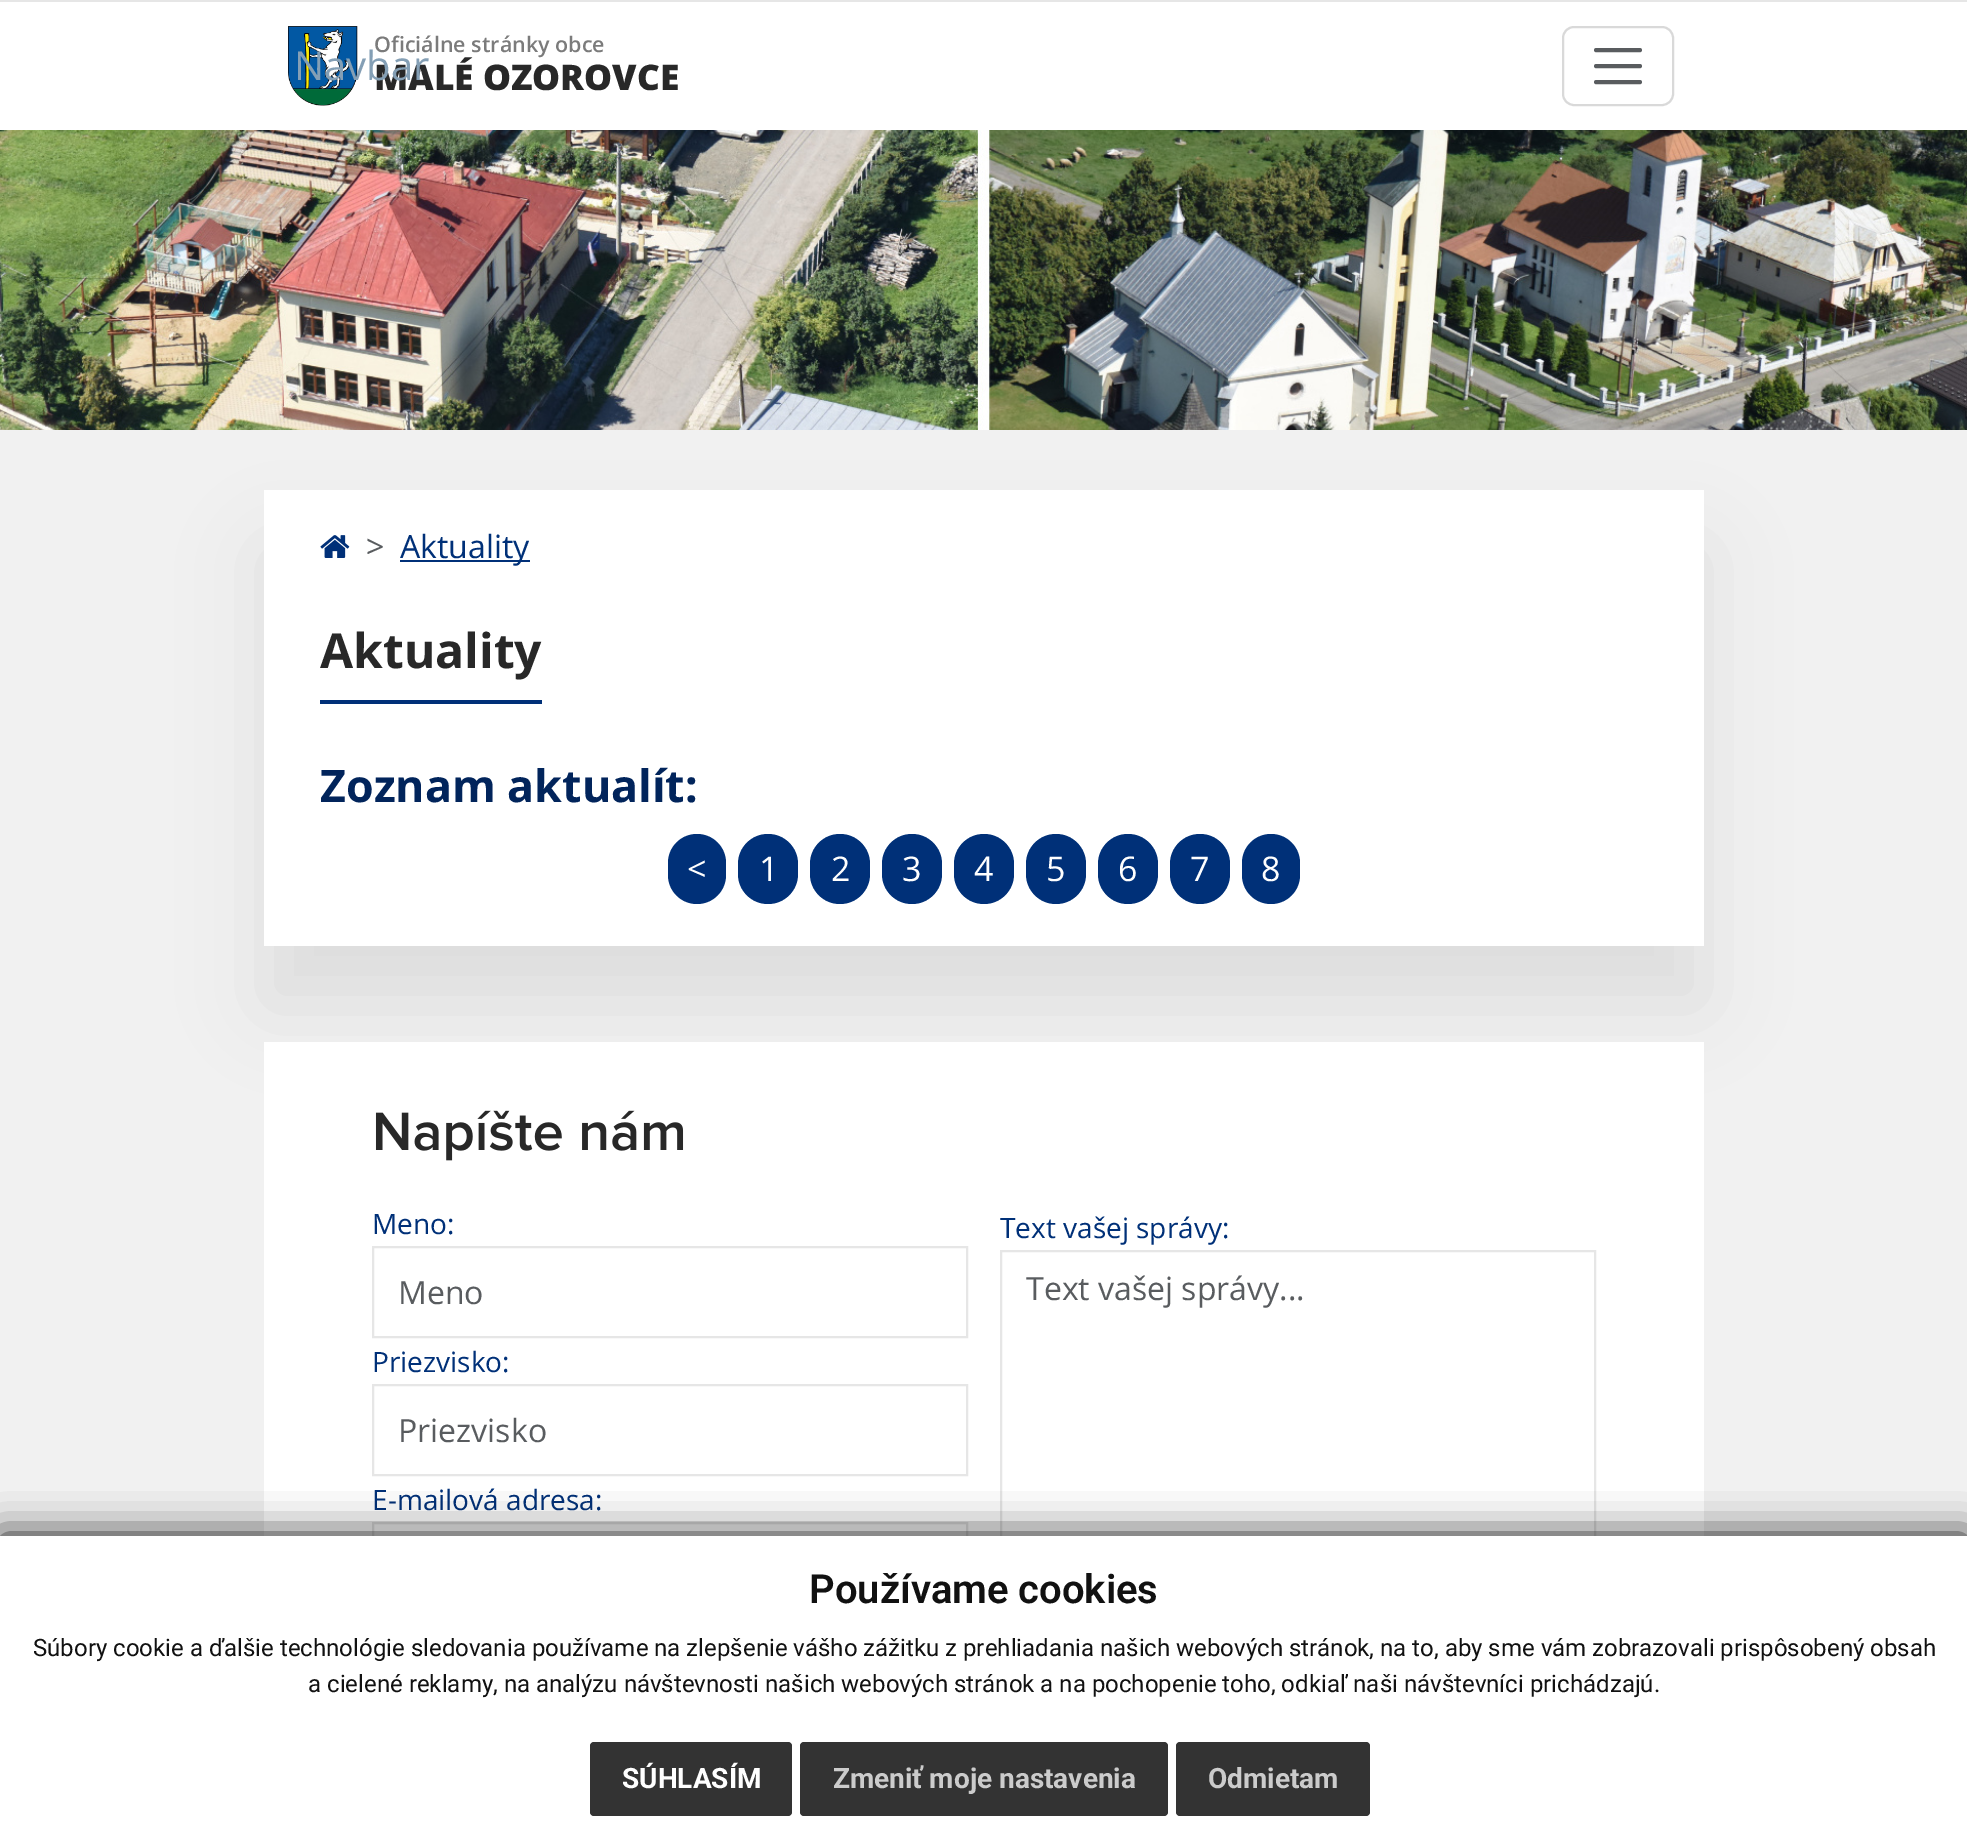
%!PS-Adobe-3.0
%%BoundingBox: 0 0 1967 1833
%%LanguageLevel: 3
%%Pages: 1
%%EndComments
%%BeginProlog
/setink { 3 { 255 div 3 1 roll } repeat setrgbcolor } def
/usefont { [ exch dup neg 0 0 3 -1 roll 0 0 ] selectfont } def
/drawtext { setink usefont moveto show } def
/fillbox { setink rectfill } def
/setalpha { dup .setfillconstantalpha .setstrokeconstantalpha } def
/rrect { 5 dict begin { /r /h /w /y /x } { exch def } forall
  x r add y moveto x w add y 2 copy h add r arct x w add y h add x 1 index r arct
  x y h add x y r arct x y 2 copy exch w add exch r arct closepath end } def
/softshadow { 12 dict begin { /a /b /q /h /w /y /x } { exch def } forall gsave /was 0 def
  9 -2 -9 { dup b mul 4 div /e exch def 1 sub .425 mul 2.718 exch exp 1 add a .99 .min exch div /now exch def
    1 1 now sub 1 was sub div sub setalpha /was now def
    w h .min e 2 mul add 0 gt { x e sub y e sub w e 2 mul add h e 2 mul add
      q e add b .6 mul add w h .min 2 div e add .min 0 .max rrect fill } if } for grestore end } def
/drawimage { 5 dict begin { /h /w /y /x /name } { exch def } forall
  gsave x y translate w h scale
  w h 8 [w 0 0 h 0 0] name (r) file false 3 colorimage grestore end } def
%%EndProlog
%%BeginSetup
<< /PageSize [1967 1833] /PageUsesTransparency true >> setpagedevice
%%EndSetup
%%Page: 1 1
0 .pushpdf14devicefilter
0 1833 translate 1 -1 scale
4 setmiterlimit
0 0 1967 1833 241 241 241 fillbox
0 2 1967 128 255 255 255 fillbox
0 0 1967 2 230 230 230 fillbox
(assets/img1.rgb) 288 26 70 80 drawimage
(MALÉ OZOROVCE) 374 90 /OpenSans-ExtraBold 35.25 40 40 40 drawtext
(Navbar) 294 80 /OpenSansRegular-Regular 40 132 159 181 drawtext
217 217 217 setink
2 setlinewidth
1563 27 110 78 11 rrect stroke
89 92 95 setink
4 setlinewidth
1 setlinecap
1596 50 moveto 1640 50 lineto 1596 66 moveto 1640 66 lineto 1596 82 moveto 1640 82 lineto stroke
(Oficiálne stránky obce) 374 52 /OpenSans-SemiBold 21.5 123 123 123 drawtext
(assets/img2.rgb) 0 130 1967 300 drawimage
0 0 0 setink
264 550 1440 456 0 40 0.07 softshadow
264 490 1440 456 255 255 255 fillbox
(assets/img3.rgb) 320 535 30 23 drawimage
(>) 366 558 /OpenSansRegular-Regular 32 89 92 95 drawtext
400 560 130 2 0 48 120 fillbox
(Aktuality) 400 558 /OpenSansRegular-Regular 32 0 48 120 drawtext
320 700 222 4 0 48 120 fillbox
(Aktuality) 320 668 /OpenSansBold-Bold 48 40 40 40 drawtext
(Zoznam aktualít:) 320 802 /OpenSansBold-Bold 44.75 1 36 91 drawtext
0 48 120 setink
668 834 58 70 29 rrect fill
(<) 687 881 /OpenSansRegular-Regular 34 255 255 255 drawtext
0 48 120 setink
738 834 60 70 30 rrect fill
(1) 759 881 /OpenSansRegular-Regular 34 255 255 255 drawtext
0 48 120 setink
810 834 60 70 30 rrect fill
(2) 831 881 /OpenSansRegular-Regular 34 255 255 255 drawtext
0 48 120 setink
882 834 60 70 30 rrect fill
(3) 902 881 /OpenSansRegular-Regular 34 255 255 255 drawtext
0 48 120 setink
954 834 60 70 30 rrect fill
(4) 974 881 /OpenSansRegular-Regular 34 255 255 255 drawtext
0 48 120 setink
1026 834 60 70 30 rrect fill
(5) 1046 881 /OpenSansRegular-Regular 34 255 255 255 drawtext
0 48 120 setink
1098 834 60 70 30 rrect fill
(6) 1118 881 /OpenSansRegular-Regular 34 255 255 255 drawtext
0 48 120 setink
1170 834 60 70 30 rrect fill
(7) 1190 881 /OpenSansRegular-Regular 34 255 255 255 drawtext
0 48 120 setink
1242 834 58 70 29 rrect fill
(8) 1261 881 /OpenSansRegular-Regular 34 255 255 255 drawtext
264 1042 1440 494 255 255 255 fillbox
(assets/img4.rgb) 375 1110 309 51 drawimage
(Meno:) 372 1234 /OpenSansRegular-Regular 28 0 48 120 drawtext
230 230 230 setink
2 setlinewidth
0 setlinecap
373 1247 594 90 rectstroke
(Meno) 398 1304 /OpenSansRegular-Regular 32 89 92 95 drawtext
(Priezvisko:) 372 1372 /OpenSansRegular-Regular 28 0 48 120 drawtext
230 230 230 setink
373 1385 594 90 rectstroke
(Priezvisko) 398 1442 /OpenSansRegular-Regular 32 89 92 95 drawtext
(E-mailová adresa:) 372 1510 /OpenSansRegular-Regular 28 0 48 120 drawtext
230 230 230 setink
373 1523 594 90 rectstroke
(Text vašej správy:) 1000 1238 /OpenSansRegular-Regular 28 0 48 120 drawtext
230 230 230 setink
1001 1251 594 362 rectstroke
(Text vašej správy...) 1026 1300 /OpenSansRegular-Regular 32 89 92 95 drawtext
17 17 17 setink
0 1536 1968 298 0 20 1 softshadow
0 1536 1967 297 255 255 255 fillbox
(Používame cookies) 809 1603 /Roboto-SemiBold 40 17 17 17 drawtext
(Súbory cookie a ďalšie technológie sledovania používame na zlepšenie vášho zážitku z prehliadania našich webových stránok, na to, aby sme vám zobrazovali prispôsobený obsah) 33 1656 /Roboto-Regular 24 17 17 17 drawtext
(a cielené reklamy, na analýzu návštevnosti našich webových stránok a na pochopenie toho, odkiaľ naši návštevníci prichádzajú.) 308 1692 /Roboto-Regular 24 17 17 17 drawtext
51 51 51 setink
590 1742 202 74 4 rrect fill
(SÚHLASÍM) 622 1788 /Roboto-Bold 28 255 255 255 drawtext
51 51 51 setink
800 1742 368 74 4 rrect fill
(Zmeniť moje nastavenia) 833 1788 /Roboto-Bold 28 204 204 204 drawtext
51 51 51 setink
1176 1742 194 74 4 rrect fill
(Odmietam) 1208 1788 /Roboto-Bold 28 204 204 204 drawtext
.poppdf14devicefilter showpage
%%EOF
